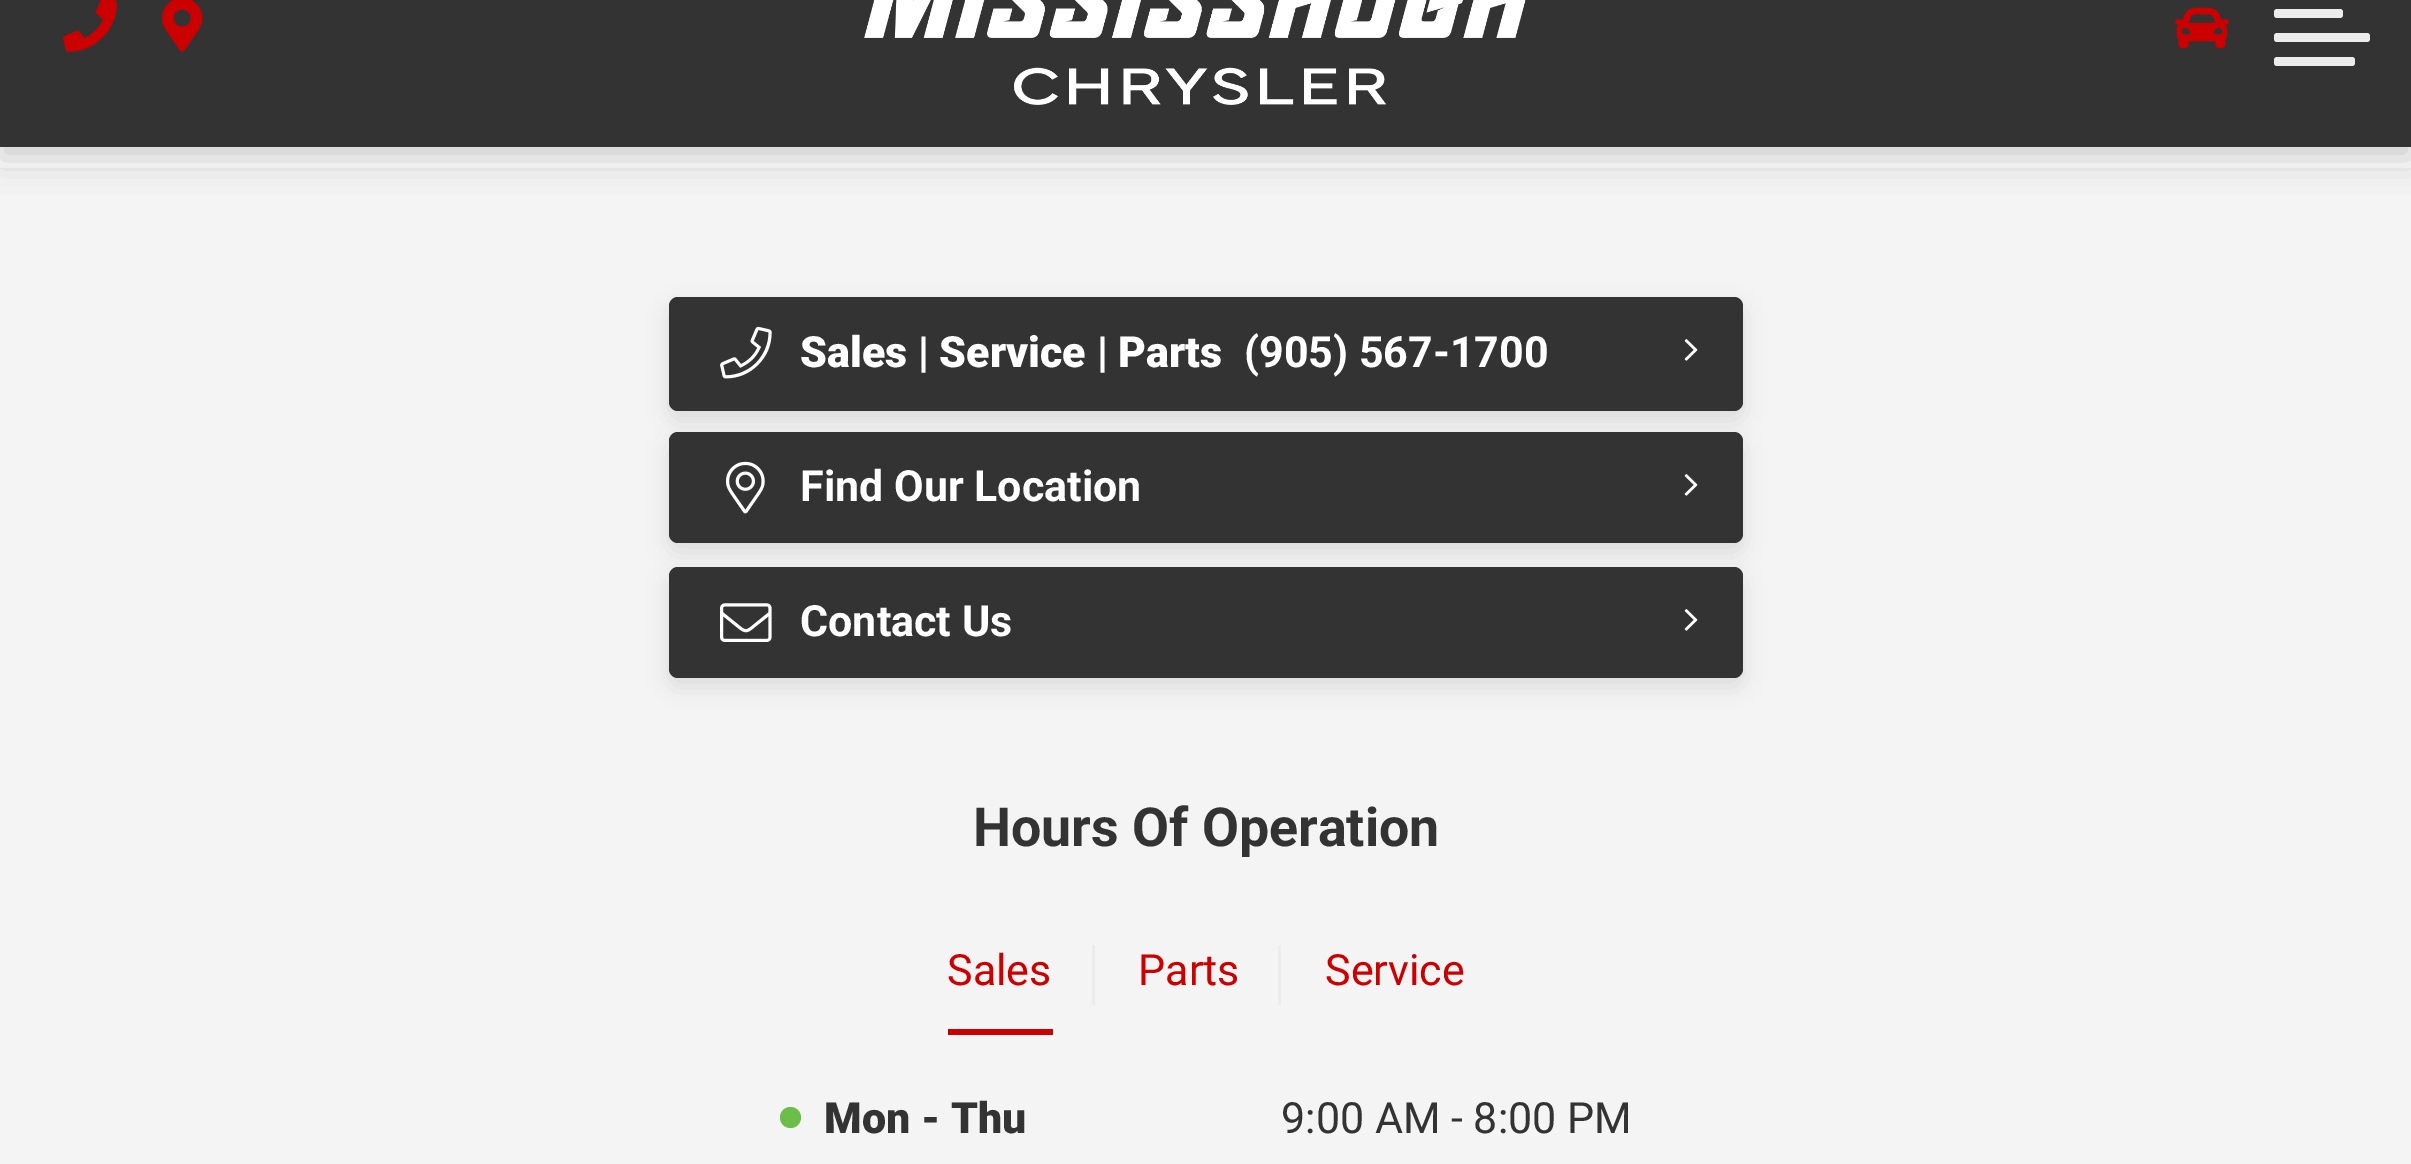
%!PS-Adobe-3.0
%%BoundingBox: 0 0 2411 1164
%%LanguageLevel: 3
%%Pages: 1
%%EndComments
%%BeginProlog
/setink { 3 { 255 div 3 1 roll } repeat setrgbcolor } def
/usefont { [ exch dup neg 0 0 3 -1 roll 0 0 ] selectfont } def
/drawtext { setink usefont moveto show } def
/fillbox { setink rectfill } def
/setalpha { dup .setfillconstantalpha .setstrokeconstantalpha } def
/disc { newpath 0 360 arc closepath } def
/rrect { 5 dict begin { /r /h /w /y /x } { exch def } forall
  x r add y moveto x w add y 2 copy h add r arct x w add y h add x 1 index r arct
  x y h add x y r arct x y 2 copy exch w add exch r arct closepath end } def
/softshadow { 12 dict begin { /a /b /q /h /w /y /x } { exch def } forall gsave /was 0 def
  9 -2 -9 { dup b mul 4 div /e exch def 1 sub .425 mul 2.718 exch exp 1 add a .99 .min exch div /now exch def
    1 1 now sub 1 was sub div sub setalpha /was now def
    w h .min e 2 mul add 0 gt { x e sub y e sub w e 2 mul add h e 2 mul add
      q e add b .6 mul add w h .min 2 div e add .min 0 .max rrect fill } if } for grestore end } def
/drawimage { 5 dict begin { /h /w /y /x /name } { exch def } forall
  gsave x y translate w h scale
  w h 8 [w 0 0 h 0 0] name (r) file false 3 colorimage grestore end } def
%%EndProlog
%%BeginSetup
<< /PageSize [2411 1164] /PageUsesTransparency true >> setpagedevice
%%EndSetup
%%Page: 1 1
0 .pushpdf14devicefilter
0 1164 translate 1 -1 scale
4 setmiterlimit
0 0 2411 1164 255 255 255 fillbox
0 168 2411 996 244 244 244 fillbox
0 0 0 setink
0 -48 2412 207 0 16 0.2 softshadow
0 0 2411 147 51 51 51 fillbox
(assets/img1.rgb) 63 0 54 52 drawimage
(assets/img2.rgb) 162 0 41 52 drawimage
(assets/img3.rgb) 864 0 662 105 drawimage
(assets/img4.rgb) 2175 7 54 41 drawimage
236 236 236 setink
2274 33 96 9 3 rrect fill
2274 9 69 9 3 rrect fill
2274 57 81 9 3 rrect fill
0 0 0 setink
669 306 1074 114 9 11 0.1 softshadow
51 51 51 setink
669 297 1074 114 9 rrect fill
(assets/img5.rgb) 720 326 52 53 drawimage
(Sales | Service | Parts) 800 367 /Roboto-Black 43 255 255 255 drawtext
(\(905\) 567-1700) 1244 367 /Roboto-Bold 43 255 255 255 drawtext
(assets/img6.rgb) 1684 339 14 22 drawimage
0 0 0 setink
669 441 1074 111 9 11 0.1 softshadow
51 51 51 setink
669 432 1074 111 9 rrect fill
(assets/img7.rgb) 726 461 39 53 drawimage
(Find Our Location) 800 501 /Roboto-Bold 43 255 255 255 drawtext
(assets/img6.rgb) 1684 474 14 22 drawimage
0 0 0 setink
669 576 1074 111 9 11 0.1 softshadow
51 51 51 setink
669 567 1074 111 9 rrect fill
(assets/img8.rgb) 720 603 52 39 drawimage
(Contact Us) 800 636 /Roboto-Bold 43 255 255 255 drawtext
(assets/img6.rgb) 1684 609 14 22 drawimage
(Hours Of Operation) 973 846 /Roboto-Bold 53.75 51 51 51 drawtext
948 1029 105 6 204 0 1 fillbox
(Sales) 947 985 /Roboto-Regular 43 204 0 1 drawtext
1092 945 3 60 236 236 236 fillbox
(Parts) 1138 985 /Roboto-Regular 43 204 0 1 drawtext
1278 945 3 60 236 236 236 fillbox
(Service) 1325 985 /Roboto-Regular 43 204 0 1 drawtext
107 191 73 setink
790.5 1117.5 10.5 disc fill
(Mon - Thu) 824 1133 /Roboto-Black 43 51 51 51 drawtext
(9:00 AM - 8:00 PM) 1281 1133 /Roboto-Regular 43 51 51 51 drawtext
.poppdf14devicefilter showpage
%%EOF
